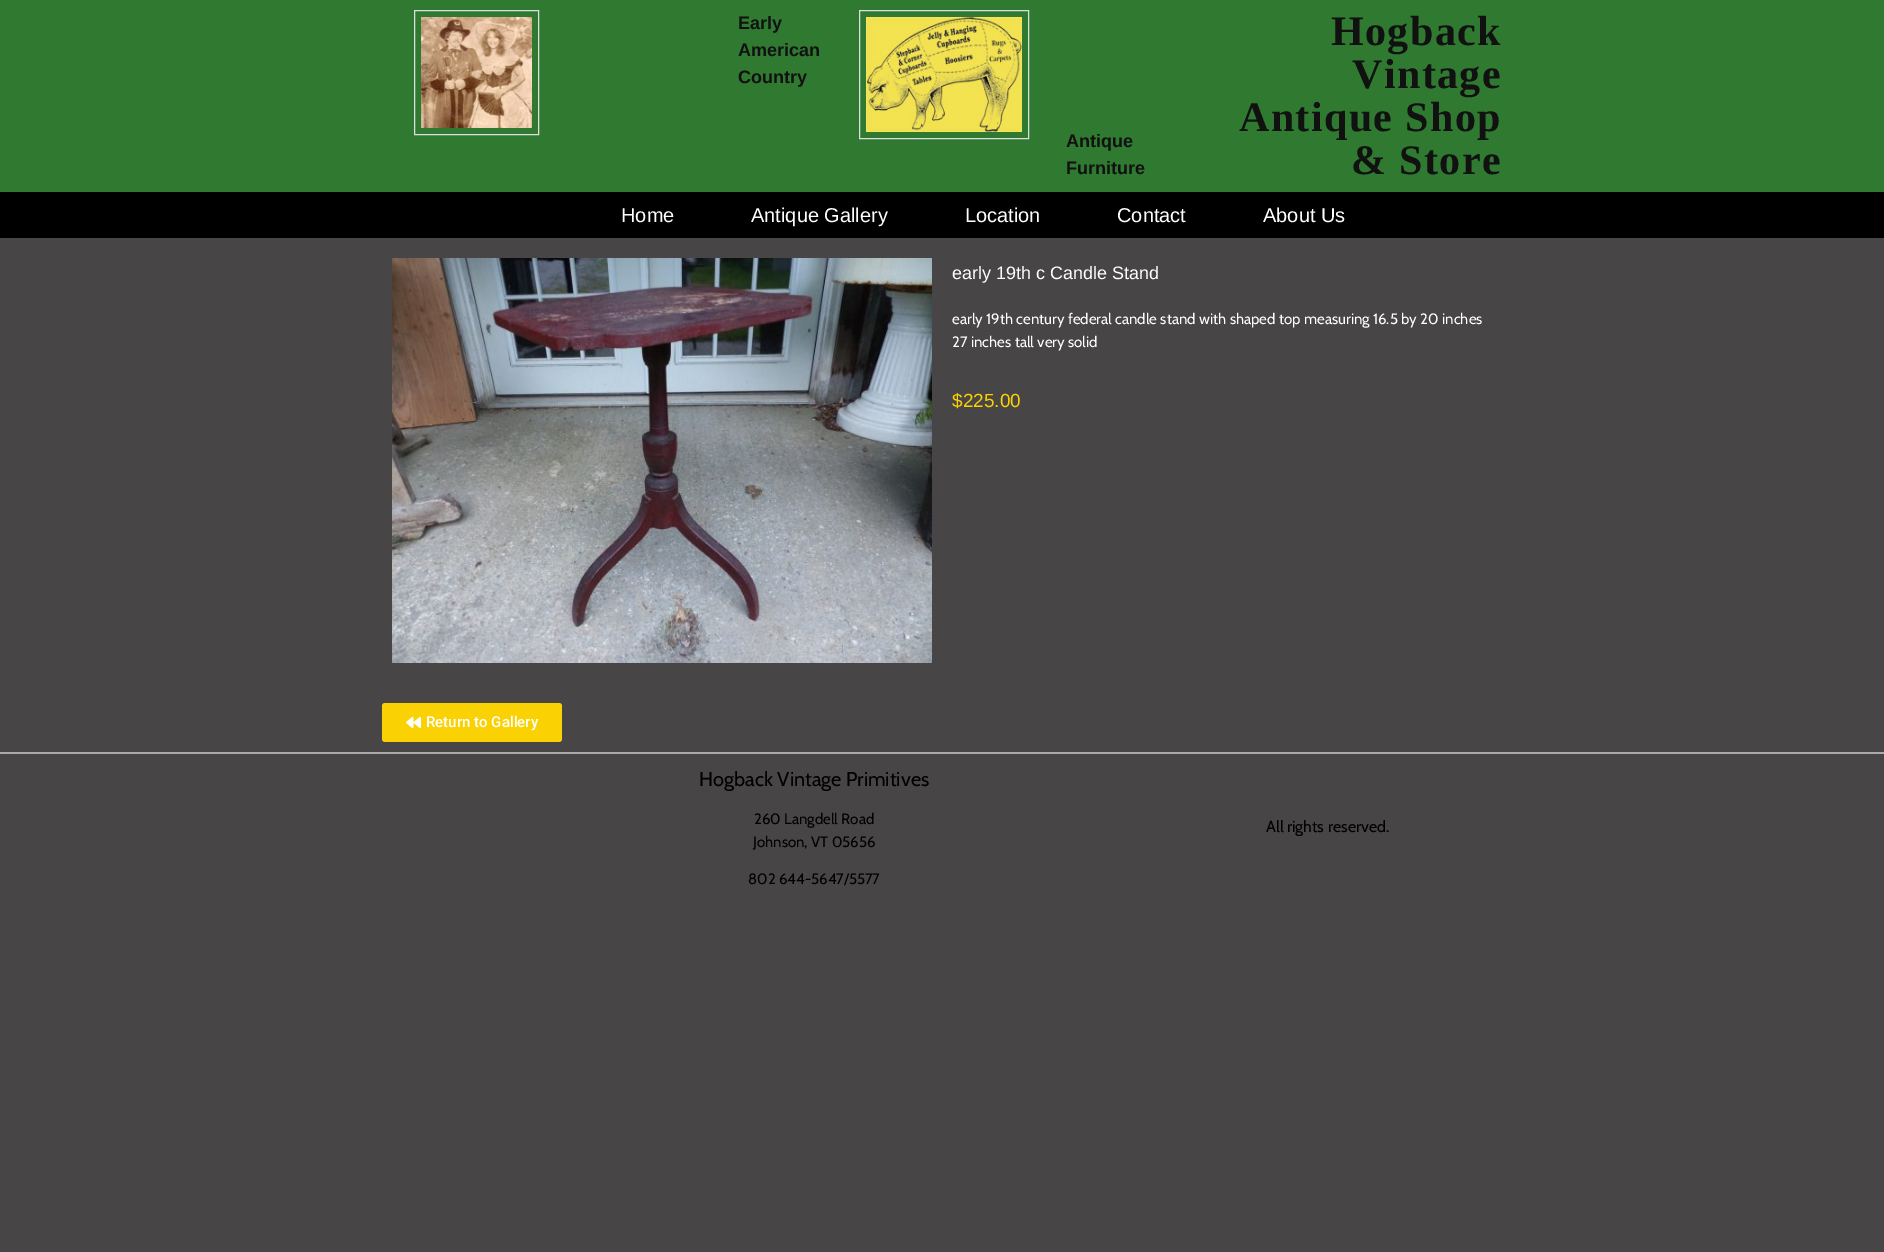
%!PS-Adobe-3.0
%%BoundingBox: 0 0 1884 1252
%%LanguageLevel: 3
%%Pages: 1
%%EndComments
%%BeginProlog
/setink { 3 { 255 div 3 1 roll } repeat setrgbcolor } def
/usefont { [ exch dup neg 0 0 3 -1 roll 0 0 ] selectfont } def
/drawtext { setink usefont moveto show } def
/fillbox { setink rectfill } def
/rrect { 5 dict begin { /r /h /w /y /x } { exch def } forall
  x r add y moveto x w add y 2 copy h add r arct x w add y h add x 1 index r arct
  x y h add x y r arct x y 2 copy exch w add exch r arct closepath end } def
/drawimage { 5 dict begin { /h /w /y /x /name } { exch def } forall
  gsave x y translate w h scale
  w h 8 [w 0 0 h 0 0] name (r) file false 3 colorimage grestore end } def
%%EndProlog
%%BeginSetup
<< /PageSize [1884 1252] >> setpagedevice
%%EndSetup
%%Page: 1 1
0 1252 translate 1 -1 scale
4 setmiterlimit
0 0 1884 1252 71 69 69 fillbox
0 0 1884 192 47 121 49 fillbox
221 221 221 setink
414.5 10.5 124 124 rectstroke
(assets/img1.rgb) 421 17 111 111 drawimage
(Early) 738 29 /LiberationSans-Bold 18 17 17 17 drawtext
(American) 738 56 /LiberationSans-Bold 18 17 17 17 drawtext
(Country) 738 83 /LiberationSans-Bold 18 17 17 17 drawtext
221 221 221 setink
859.5 10.5 169 128 rectstroke
(assets/img2.rgb) 866 17 156 115 drawimage
(Antique) 1066 147 /LiberationSans-Bold 18 17 17 17 drawtext
(Furniture) 1066 174 /LiberationSans-Bold 18 17 17 17 drawtext
/LiberationSerif-Bold 42 usefont
1331 45 moveto 1.4 0 (Hogback) ashow
1352 88 moveto 1.4 0 (Vintage) ashow
1239 131 moveto 1.4 0 (Antique Shop) ashow
1351 174 moveto 1.4 0 (& Store) ashow
0 192 1884 46 0 0 0 fillbox
(Home) 621 222 /LiberationSans-Regular 20 255 255 255 drawtext
(Antique Gallery) 751 222 /LiberationSans-Regular 20 255 255 255 drawtext
(Location) 965 222 /LiberationSans-Regular 20 255 255 255 drawtext
(Contact) 1117 222 /LiberationSans-Regular 20 255 255 255 drawtext
(About Us) 1263 222 /LiberationSans-Regular 20 255 255 255 drawtext
(assets/img3.rgb) 392 258 540 405 drawimage
(early 19th c Candle Stand) 952 279 /LiberationSans-Regular 18 255 255 255 drawtext
(early 19th century federal candle stand with shaped top measuring 16.5 by 20 inches) 952 324 /Cabin-Regular 15 255 255 255 drawtext
(27 inches tall very solid) 952 347 /Cabin-Regular 15 255 255 255 drawtext
($225.00) 952 407 /LiberationSans-Regular 19 250 209 3 drawtext
382 703 180 39 3 rrect fill
(assets/img4.rgb) 406 716 15 13 drawimage
(Return to Gallery) 426 727 /Roboto-Medium 15 255 255 255 drawtext
0 752 1884 2 170 170 170 fillbox
(Hogback Vintage Primitives) 699 786 /Cabin-Regular 20 0 0 0 drawtext
(260 Langdell Road) 754 824 /Cabin-Regular 15 0 0 0 drawtext
(Johnson, VT 05656) 753 847 /Cabin-Regular 15 0 0 0 drawtext
(802 644-5647/5577) 748 884 /Cabin-Regular 15 0 0 0 drawtext
(All rights reserved.) 1266 832 /Cabin-Regular 16 0 0 0 drawtext
showpage
%%EOF
